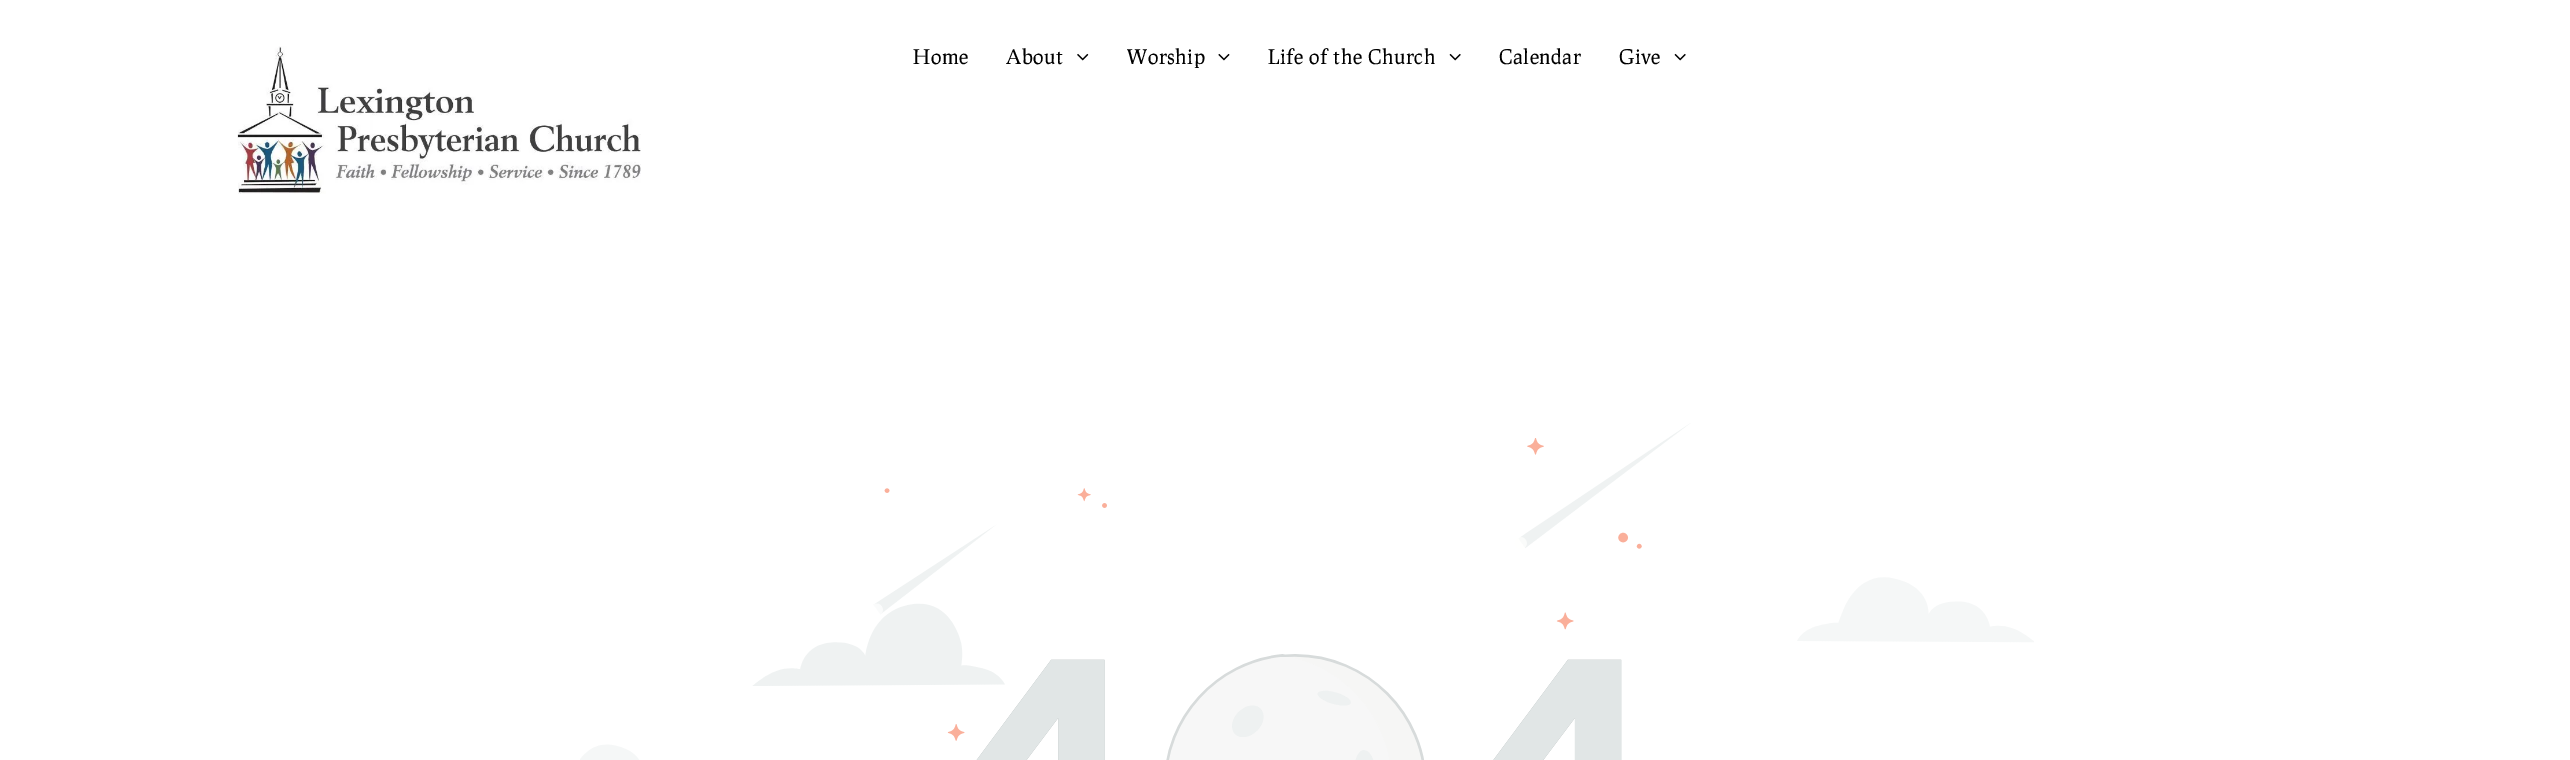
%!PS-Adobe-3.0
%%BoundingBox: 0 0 2570 760
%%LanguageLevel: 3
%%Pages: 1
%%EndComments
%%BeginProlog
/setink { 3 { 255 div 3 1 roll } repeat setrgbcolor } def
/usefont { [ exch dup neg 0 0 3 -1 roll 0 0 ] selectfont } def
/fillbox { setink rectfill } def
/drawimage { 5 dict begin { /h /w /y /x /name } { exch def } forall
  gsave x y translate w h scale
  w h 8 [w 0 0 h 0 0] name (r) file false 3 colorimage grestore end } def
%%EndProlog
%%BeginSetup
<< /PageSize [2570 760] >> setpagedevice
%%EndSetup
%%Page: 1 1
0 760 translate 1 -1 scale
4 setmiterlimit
0 0 2570 760 255 255 255 fillbox
(assets/img1.rgb) 237 46 404 148 drawimage
/Prociono-Regular 20 usefont
0 0 0 setink
913 64 moveto 0.6 0 (Home) ashow
1006 64 moveto 0.6 0 (About) ashow
(assets/img2.rgb) 1077 53 12 8 drawimage
1127 64 moveto 0.6 0 (Worship) ashow
(assets/img3.rgb) 1218 53 12 8 drawimage
1268 64 moveto 0.6 0 (Life of the Church) ashow
(assets/img4.rgb) 1449 53 12 8 drawimage
1499 64 moveto 0.6 0 (Calendar) ashow
1619 64 moveto 0.6 0 (Give) ashow
(assets/img4.rgb) 1674 53 12 8 drawimage
(assets/img5.rgb) 580 423 1454 337 drawimage
showpage
%%EOF
